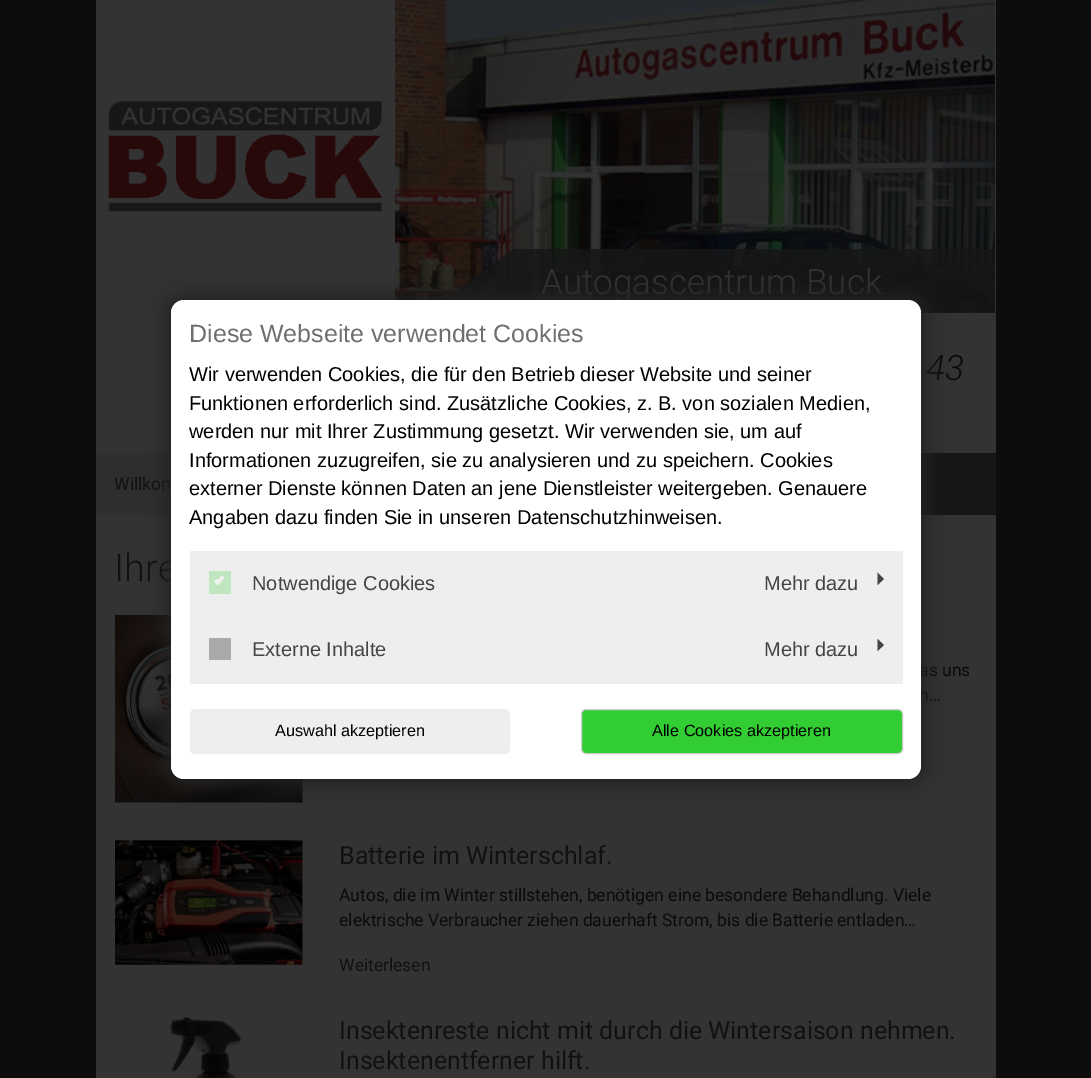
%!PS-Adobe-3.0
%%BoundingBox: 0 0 1091 1078
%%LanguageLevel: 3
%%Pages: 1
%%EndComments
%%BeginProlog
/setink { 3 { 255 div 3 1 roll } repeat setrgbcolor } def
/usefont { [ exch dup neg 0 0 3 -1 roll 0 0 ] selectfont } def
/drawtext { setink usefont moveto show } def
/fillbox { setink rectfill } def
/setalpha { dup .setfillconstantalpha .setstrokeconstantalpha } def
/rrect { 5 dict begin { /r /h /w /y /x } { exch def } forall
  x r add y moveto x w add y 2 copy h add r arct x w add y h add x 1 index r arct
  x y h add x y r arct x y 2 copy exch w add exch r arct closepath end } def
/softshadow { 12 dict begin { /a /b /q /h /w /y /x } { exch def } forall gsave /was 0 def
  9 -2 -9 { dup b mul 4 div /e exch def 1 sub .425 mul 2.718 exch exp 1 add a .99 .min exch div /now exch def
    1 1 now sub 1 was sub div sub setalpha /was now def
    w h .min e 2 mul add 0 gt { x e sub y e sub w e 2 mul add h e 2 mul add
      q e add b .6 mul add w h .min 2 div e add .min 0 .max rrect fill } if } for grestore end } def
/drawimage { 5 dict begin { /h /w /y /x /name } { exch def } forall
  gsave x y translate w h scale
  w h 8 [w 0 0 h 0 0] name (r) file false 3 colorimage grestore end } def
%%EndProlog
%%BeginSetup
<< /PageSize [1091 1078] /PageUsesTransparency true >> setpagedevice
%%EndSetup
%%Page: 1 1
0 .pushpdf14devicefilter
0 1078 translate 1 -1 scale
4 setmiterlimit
0 0 1091 1078 13 13 13 fillbox
96 0 900 1078 51 51 51 fillbox
(assets/img1.rgb) 108 101 274 111 drawimage
(assets/img2.rgb) 395 0 600 313 drawimage
0.85 setalpha
22 22 22 setink
515 312 moveto 428 312 lineto 515 248 lineto closepath fill
515 249 480 64 22 22 22 fillbox
1 setalpha
(Autogascentrum Buck) 541 294 /Roboto-Light 35 51 51 51 drawtext
(43) 926 380 /Roboto-LightItalic 35 10 10 10 drawtext
921 453 75 62 22 22 22 fillbox
96 453 75 62 46 46 46 fillbox
(Willkom) 114 490 /Roboto-Regular 17.5 17 17 17 drawtext
(Ihre) 114 581 /Roboto-Light 38 17 17 17 drawtext
(assets/img3.rgb) 115 615 188 188 drawimage
(as uns) 919 676 /Roboto-Regular 17.5 10 10 10 drawtext
(n…) 919 701 /Roboto-Regular 17.5 10 10 10 drawtext
(assets/img4.rgb) 115 840 188 125 drawimage
(Batterie im Winterschlaf.) 339 864 /Roboto-Regular 25 17 17 17 drawtext
(Autos, die im Winter stillstehen, benötigen eine besondere Behandlung. Viele) 339 901 /Roboto-Regular 17.5 10 10 10 drawtext
(elektrische Verbraucher ziehen dauerhaft Strom, bis die Batterie entladen…) 339 926 /Roboto-Regular 17.5 10 10 10 drawtext
(Weiterlesen) 339 971 /Roboto-Regular 17.5 17 17 17 drawtext
(assets/img5.rgb) 168 1015 74 63 drawimage
(Insektenreste nicht mit durch die Wintersaison nehmen.) 339 1039 /Roboto-Regular 25 17 17 17 drawtext
(Insektenentferner hilft.) 339 1069 /Roboto-Regular 25 17 17 17 drawtext
34 34 34 setink
165 294 763 491 19 9.5 1 softshadow
255 255 255 setink
171 300 750 479 13 rrect fill
(Diese Webseite verwendet Cookies) 189 342 /LiberationSans-Regular 25 110 111 112 drawtext
(Wir verwenden Cookies, die für den Betrieb dieser Website und seiner) 189 381 /LiberationSans-Regular 20 0 0 0 drawtext
(Funktionen erforderlich sind. Zusätzliche Cookies, z. B. von sozialen Medien,) 189 410 /LiberationSans-Regular 20 0 0 0 drawtext
(werden nur mit Ihrer Zustimmung gesetzt. Wir verwenden sie, um auf) 189 438 /LiberationSans-Regular 20 0 0 0 drawtext
(Informationen zuzugreifen, sie zu analysieren und zu speichern. Cookies) 189 467 /LiberationSans-Regular 20 0 0 0 drawtext
(externer Dienste können Daten an jene Dienstleister weitergeben. Genauere) 189 495 /LiberationSans-Regular 20 0 0 0 drawtext
(Angaben dazu finden Sie in unseren Datenschutzhinweisen.) 189 524 /LiberationSans-Regular 20 0 0 0 drawtext
190 551 713 133 238 238 238 fillbox
209 571 22 23 191 230 191 fillbox
242 242 242 setink
222 575.5 moveto 224.5 578 lineto 217.5 585 lineto 215 582.5 lineto closepath fill
216.5 579 moveto 220.5 582.5 lineto 217.5 585 lineto 214 581.5 lineto closepath fill
(Notwendige Cookies) 252 590 /LiberationSans-Regular 20 68 68 68 drawtext
(Mehr dazu) 764 590 /LiberationSans-Regular 20 68 68 68 drawtext
877.5 585 moveto 877.5 572.5 lineto 884 579 lineto closepath fill
209 638 22 22 170 170 170 fillbox
(Externe Inhalte) 252 656 /LiberationSans-Regular 20 68 68 68 drawtext
(Mehr dazu) 764 656 /LiberationSans-Regular 20 68 68 68 drawtext
877.5 651 moveto 877.5 639 lineto 884 645 lineto closepath fill
238 238 238 setink
190.5 709.5 319 44 4.5 rrect gsave fill grestore
stroke
(Auswahl akzeptieren) 275 736 /LiberationSans-Regular 16.25 0 0 0 drawtext
50 205 50 setink
581.5 709.5 321 44 4.5 rrect gsave fill grestore
204 204 204 setink
stroke
(Alle Cookies akzeptieren) 652 736 /LiberationSans-Regular 16.25 0 0 0 drawtext
.poppdf14devicefilter showpage
%%EOF
